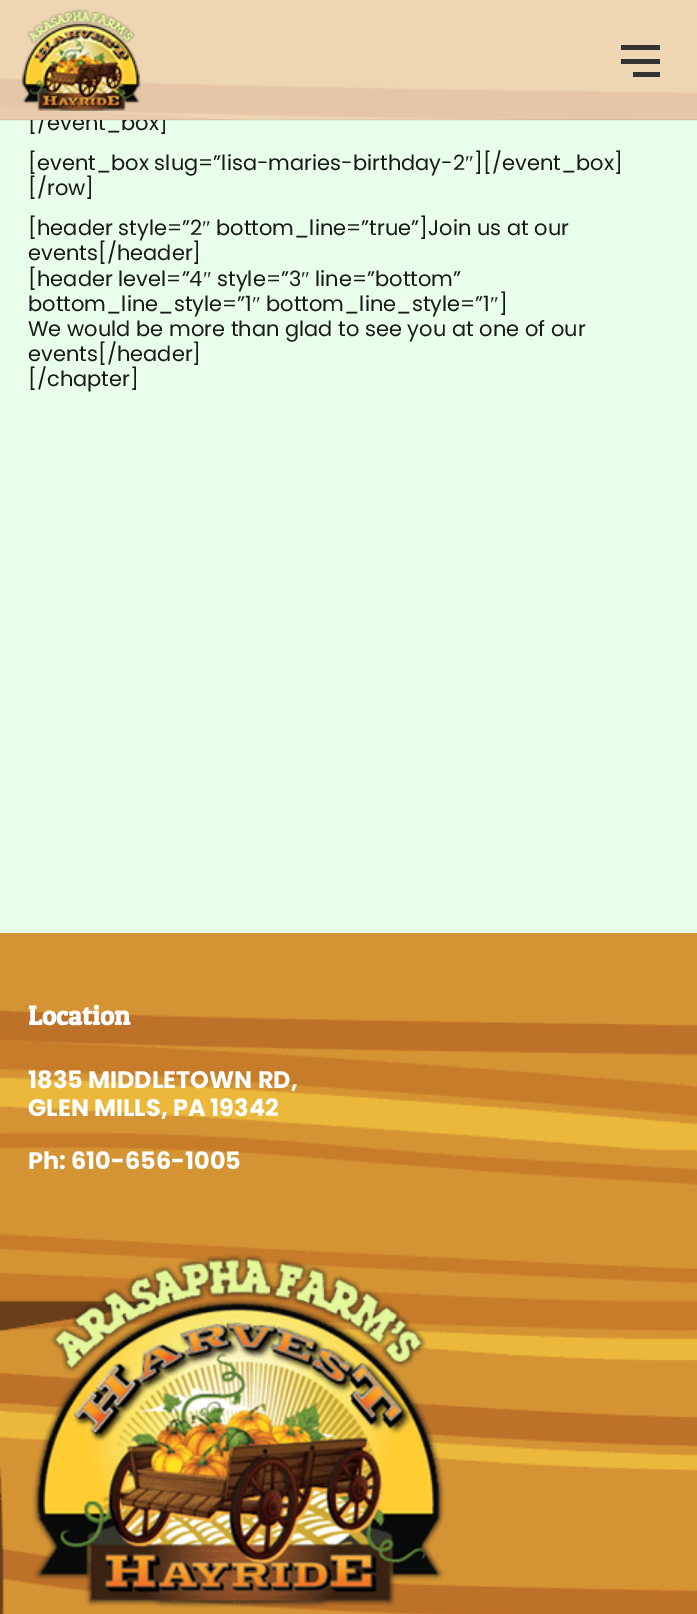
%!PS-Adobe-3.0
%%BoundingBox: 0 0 697 1614
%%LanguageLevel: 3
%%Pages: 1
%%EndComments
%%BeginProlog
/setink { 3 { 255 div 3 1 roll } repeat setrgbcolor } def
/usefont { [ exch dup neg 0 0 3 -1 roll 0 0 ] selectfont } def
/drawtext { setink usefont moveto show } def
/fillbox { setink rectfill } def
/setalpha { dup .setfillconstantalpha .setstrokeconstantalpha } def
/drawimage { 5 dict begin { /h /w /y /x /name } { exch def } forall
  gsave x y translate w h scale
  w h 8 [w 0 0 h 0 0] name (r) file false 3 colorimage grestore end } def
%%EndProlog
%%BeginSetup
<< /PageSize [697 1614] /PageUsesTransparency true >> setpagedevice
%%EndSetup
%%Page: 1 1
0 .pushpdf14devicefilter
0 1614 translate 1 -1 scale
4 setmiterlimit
0 0 697 1614 255 255 255 fillbox
0 120 697 813 232 255 233 fillbox
([/event_box]) 28 130 /Poppins-Regular 21 25 25 25 drawtext
(assets/img1.rgb) 0 0 697 120 drawimage
0.05 setalpha
0 119 697 2 0 0 0 fillbox
1 setalpha
(assets/img2.rgb) 21 9 120 102 drawimage
621 45 39 5 51 51 51 fillbox
621 59 39 5 51 51 51 fillbox
633 72 27 5 51 51 51 fillbox
([event_box slug=”lisa-maries-birthday-2) 28 170 /Poppins-Regular 21 25 25 25 drawtext
(″) 465 170 /LiberationSerif-Regular 21 25 25 25 drawtext
(][/event_box]) 474 170 /Poppins-Regular 21 25 25 25 drawtext
([/row]) 28 195 /Poppins-Regular 21 25 25 25 drawtext
([header style=”2) 28 235 /Poppins-Regular 21 25 25 25 drawtext
(″) 202 235 /LiberationSerif-Regular 21 25 25 25 drawtext
(bottom_line=”true”]Join us at our) 216 235 /Poppins-Regular 21 25 25 25 drawtext
(events[/header]) 28 260 /Poppins-Regular 21 25 25 25 drawtext
([header level=”4) 28 286 /Poppins-Regular 21 25 25 25 drawtext
(″) 203 286 /LiberationSerif-Regular 21 25 25 25 drawtext
(style=”3) 217 286 /Poppins-Regular 21 25 25 25 drawtext
(″) 301 286 /LiberationSerif-Regular 21 25 25 25 drawtext
(line=”bottom”) 315 286 /Poppins-Regular 21 25 25 25 drawtext
(bottom_line_style=”1) 28 311 /Poppins-Regular 21 25 25 25 drawtext
(″) 252 311 /LiberationSerif-Regular 21 25 25 25 drawtext
(bottom_line_style=”1) 266 311 /Poppins-Regular 21 25 25 25 drawtext
(″) 490 311 /LiberationSerif-Regular 21 25 25 25 drawtext
(]) 499 311 /Poppins-Regular 21 25 25 25 drawtext
(We would be more than glad to see you at one of our) 28 336 /Poppins-Regular 21 25 25 25 drawtext
(events[/header]) 28 361 /Poppins-Regular 21 25 25 25 drawtext
([/chapter]) 28 386 /Poppins-Regular 21 25 25 25 drawtext
(assets/img3.rgb) 0 933 697 681 drawimage
(Location) 28 1025 /PatuaOne-Bold 27 255 255 255 drawtext
(1835 MIDDLETOWN RD,) 28 1088 /Poppins-Bold 24 255 255 255 drawtext
(GLEN MILLS, PA 19342) 28 1116 /Poppins-Bold 24 255 255 255 drawtext
(Ph: 610-656-1005) 28 1169 /Poppins-Bold 24 255 255 255 drawtext
(assets/img4.rgb) 32 1254 413 354 drawimage
.poppdf14devicefilter showpage
%%EOF
